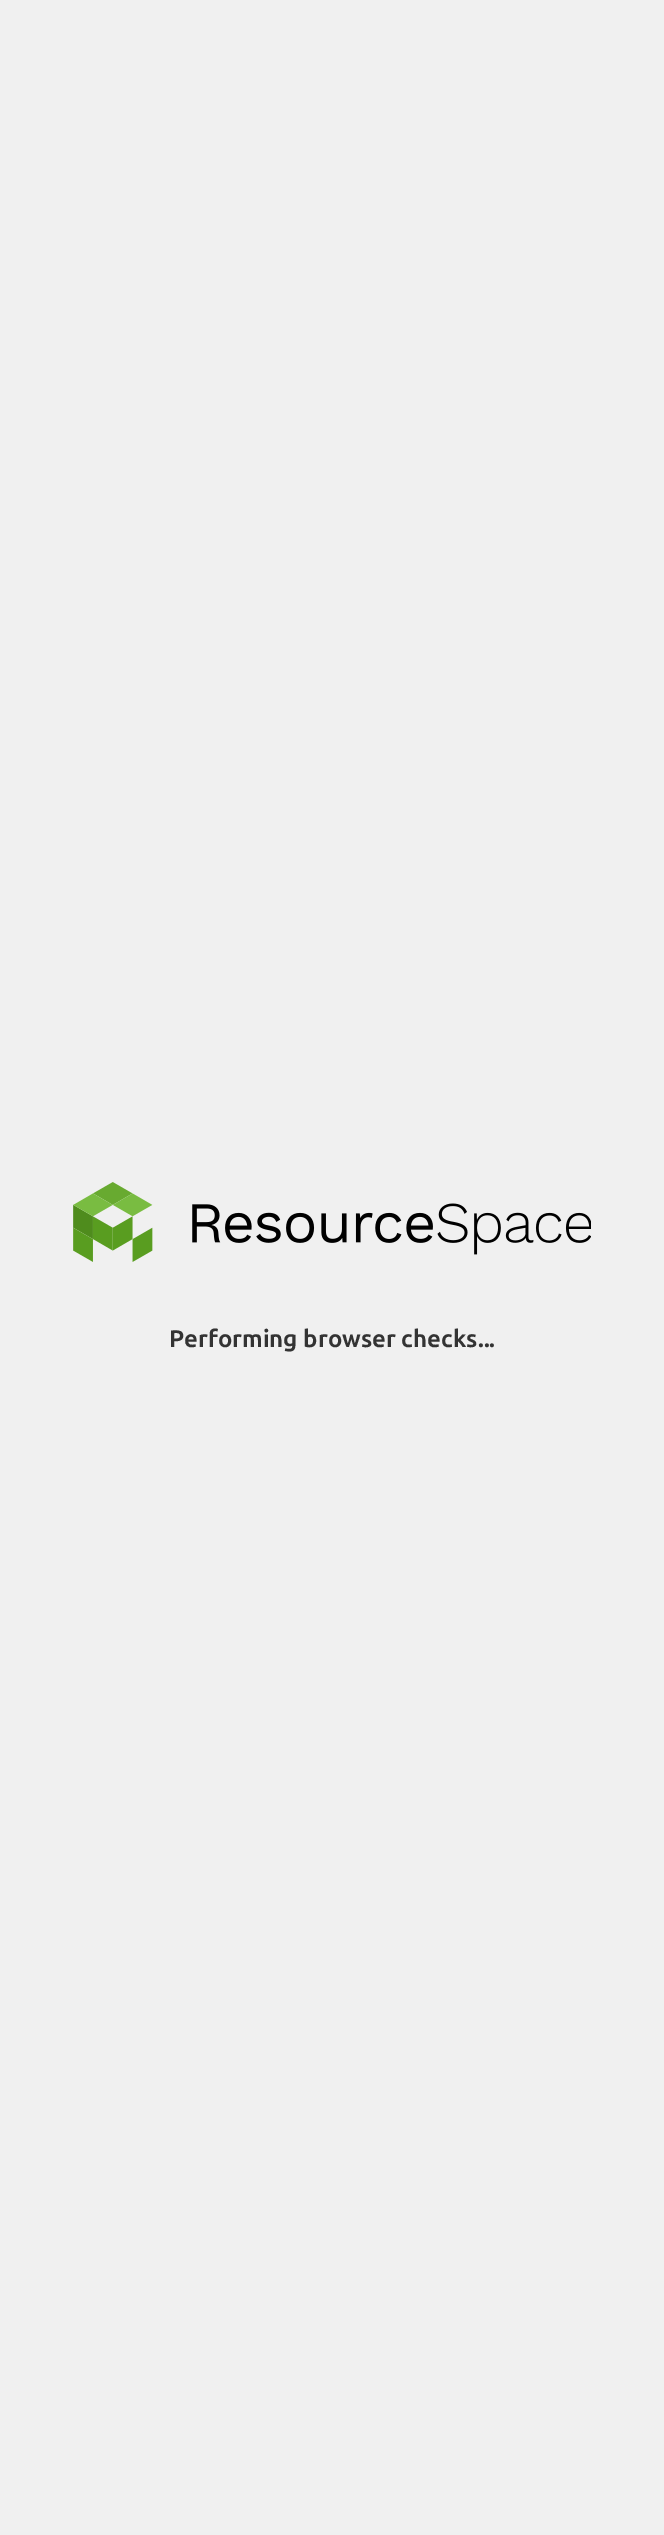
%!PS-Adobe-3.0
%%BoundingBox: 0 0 664 2535
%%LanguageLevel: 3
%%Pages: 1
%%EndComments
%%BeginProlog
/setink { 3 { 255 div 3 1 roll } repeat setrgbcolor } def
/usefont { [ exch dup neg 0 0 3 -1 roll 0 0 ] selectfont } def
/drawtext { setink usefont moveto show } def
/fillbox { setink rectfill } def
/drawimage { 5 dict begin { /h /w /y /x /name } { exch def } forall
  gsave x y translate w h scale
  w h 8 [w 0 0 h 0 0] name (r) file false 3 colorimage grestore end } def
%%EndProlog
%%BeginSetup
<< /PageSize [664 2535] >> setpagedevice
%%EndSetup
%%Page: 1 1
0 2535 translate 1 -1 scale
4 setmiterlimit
0 0 664 2535 240 240 240 fillbox
(assets/img1.rgb) 73 1182 518 80 drawimage
(Performing browser checks...) 169 1347 /Ubuntu-Bold 24 51 51 51 drawtext
showpage
%%EOF
